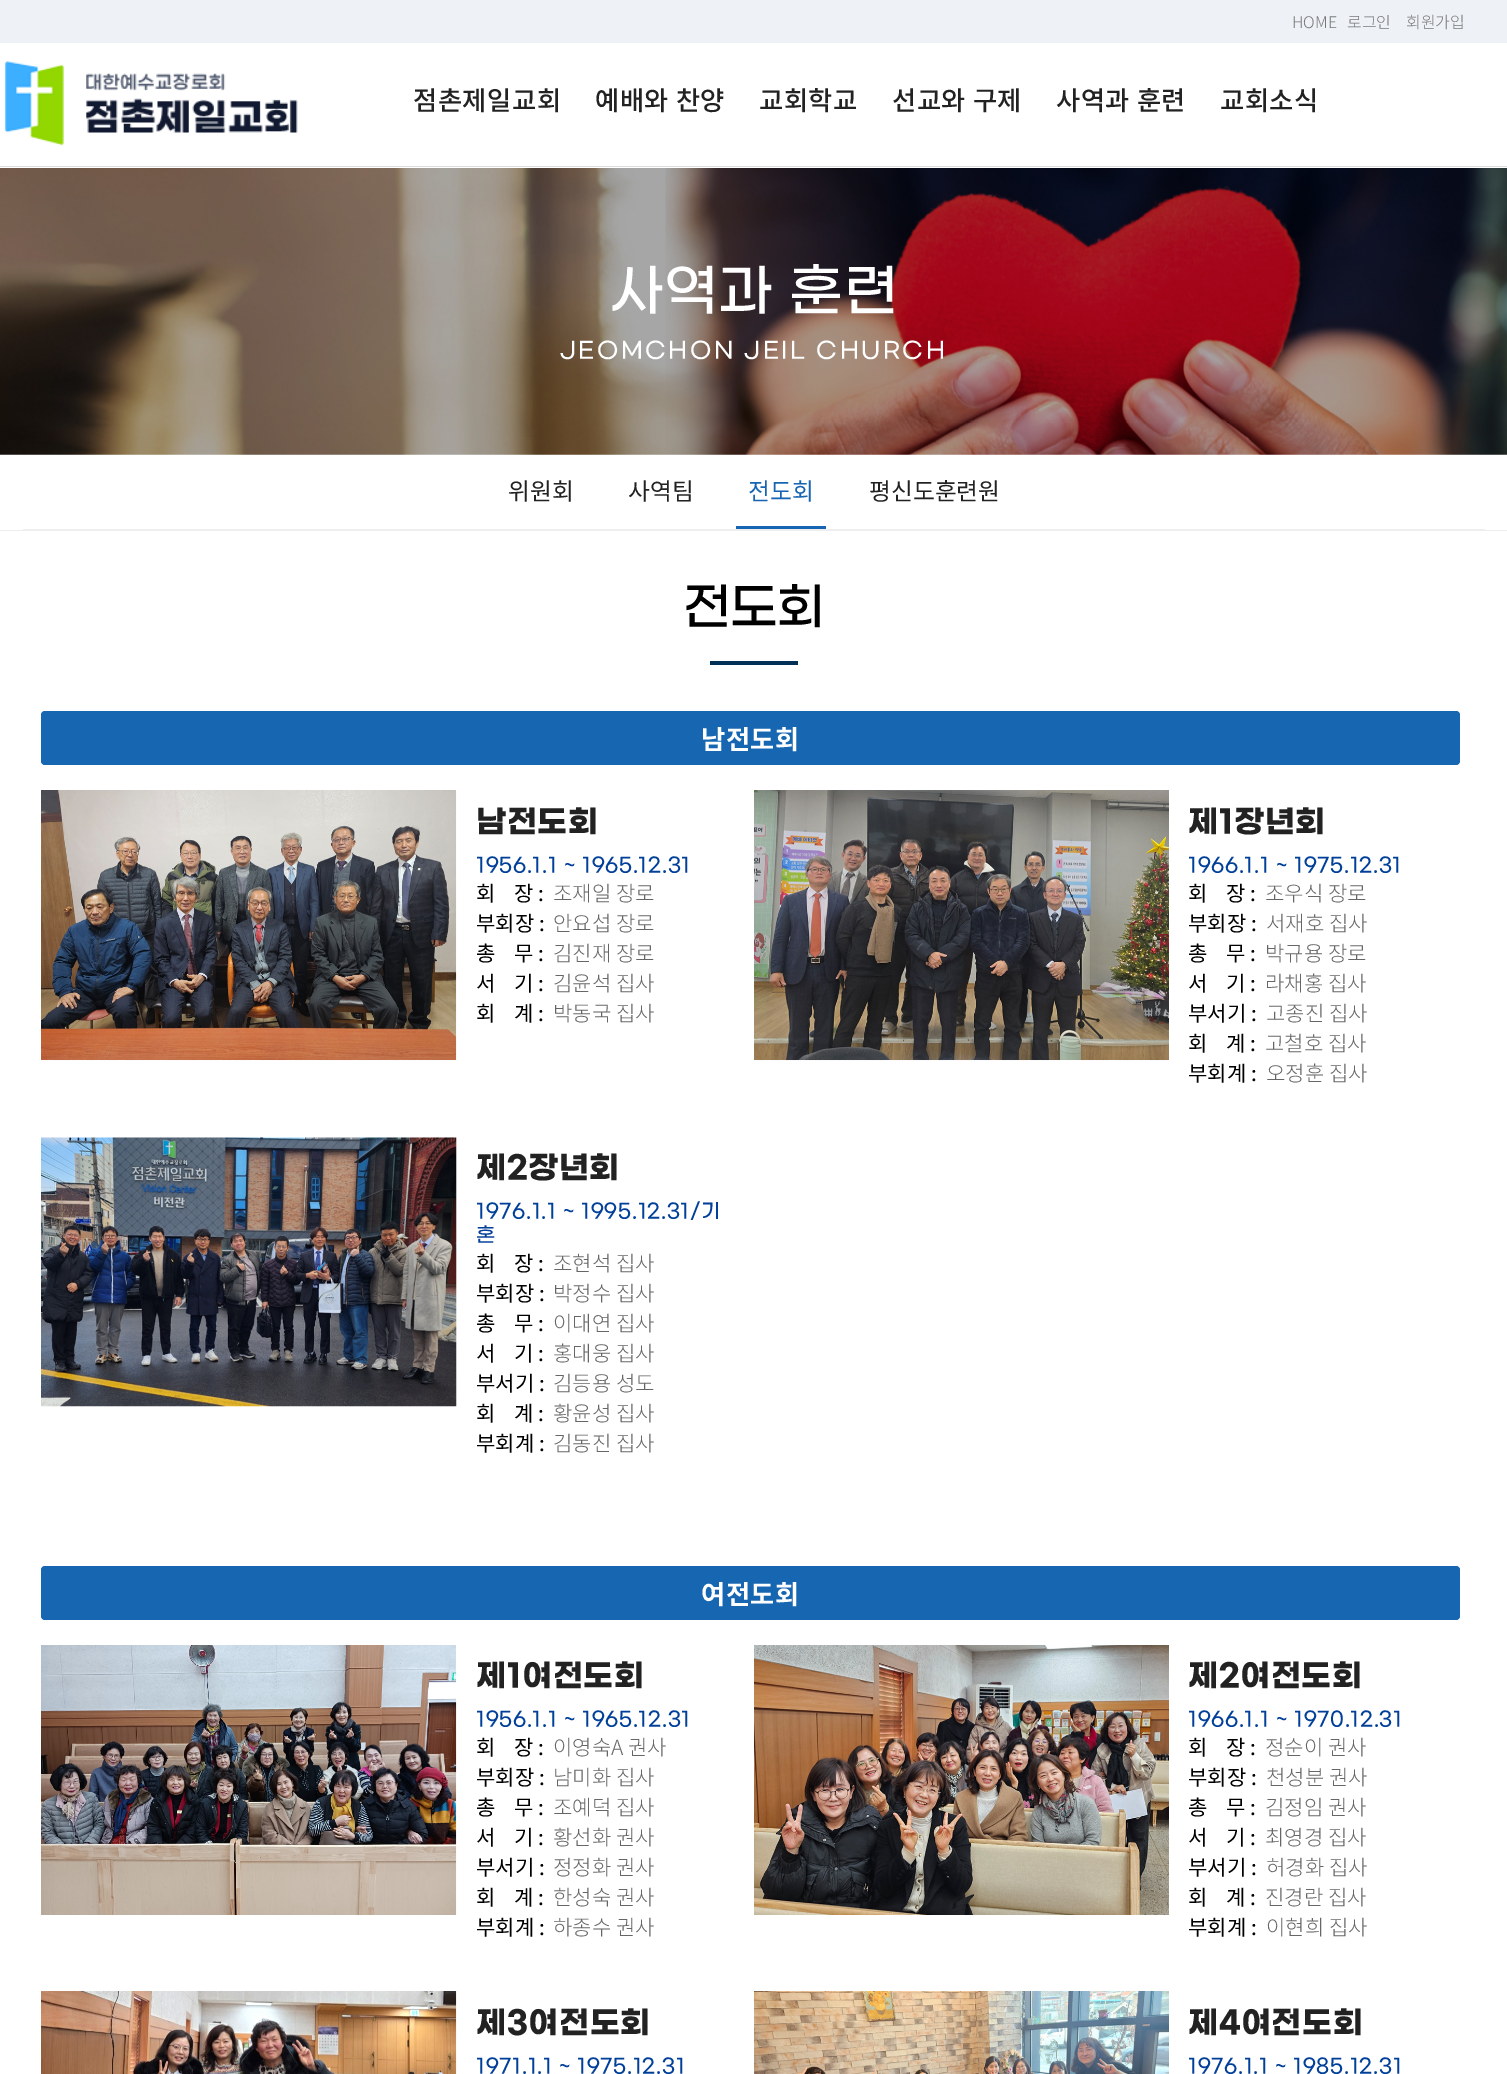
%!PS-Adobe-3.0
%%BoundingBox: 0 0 1507 2074
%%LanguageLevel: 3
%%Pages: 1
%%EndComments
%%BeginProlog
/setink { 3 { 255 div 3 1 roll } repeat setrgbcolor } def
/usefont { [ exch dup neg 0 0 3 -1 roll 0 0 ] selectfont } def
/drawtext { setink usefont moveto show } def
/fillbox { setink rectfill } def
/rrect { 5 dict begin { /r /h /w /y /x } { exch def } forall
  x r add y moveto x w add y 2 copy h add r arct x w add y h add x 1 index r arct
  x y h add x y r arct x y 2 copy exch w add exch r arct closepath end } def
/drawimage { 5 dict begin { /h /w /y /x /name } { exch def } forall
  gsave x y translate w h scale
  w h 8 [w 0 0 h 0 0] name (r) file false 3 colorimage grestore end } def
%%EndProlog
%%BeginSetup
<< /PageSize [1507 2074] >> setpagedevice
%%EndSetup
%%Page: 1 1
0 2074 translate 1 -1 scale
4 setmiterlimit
0 0 1507 2074 255 255 255 fillbox
0 0 1507 43 238 241 246 fillbox
(HOME) 1292 28 /NotoSansKR-Light 16 119 119 119 drawtext
(로그인) 1347 28 /NotoSansKR-Light 16 119 119 119 drawtext
(회원가입) 1406 28 /NotoSansKR-Light 16 119 119 119 drawtext
0 166 1507 1 221 221 221 fillbox
(assets/img1.rgb) 4 61 294 85 drawimage
/NotoSansKR-Medium 26.25 usefont
34 34 34 setink
413 110 moveto 0.6 0 (점촌제일교회) ashow
595 110 moveto 0.6 0 (예배와 찬양) ashow
759 110 moveto 0.6 0 (교회학교) ashow
892 110 moveto 0.6 0 (선교와 구제) ashow
1056 110 moveto 0.6 0 (사역과 훈련) ashow
1220 110 moveto 0.6 0 (교회소식) ashow
(assets/img2.rgb) 0 168 1507 287 drawimage
/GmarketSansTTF-Medium 56.25 usefont
255 255 255 setink
609 308 moveto 0.6 0 (사역과 훈련) ashow
/GmarketSansTTF-Medium 22.5 usefont
560 357 moveto 2.5 0 (JEOMCHON JEIL CHURCH) ashow
0 530 1507 1 238 238 238 fillbox
23 529 1462 1 238 238 238 fillbox
(위원회) 508 500 /NotoSansKR-Regular 23.75 34 34 34 drawtext
(사역팀) 628 500 /NotoSansKR-Regular 23.75 34 34 34 drawtext
736 526 90 3 22 101 178 fillbox
(전도회) 748 500 /NotoSansKR-Regular 23.75 22 101 178 drawtext
(평신도훈련원) 869 500 /NotoSansKR-Regular 23.75 34 34 34 drawtext
/GmarketSansTTF-Medium 50 usefont
0 0 0 setink
683 622 moveto -1 0 (전도회) ashow
710 661 88 4 0 48 86 fillbox
23 102 178 setink
41 711 1419 54 4 rrect fill
/NotoSansKR-Bold 26.25 usefont
255 255 255 setink
701 749 moveto 0.6 0 (남전도회) ashow
(assets/img3.rgb) 41 790 416 271 drawimage
/GmarketSansTTF-Bold 31.25 usefont
34 34 34 setink
476 831 moveto 0.6 0 (남전도회) ashow
/GmarketSansTTF-Medium 20 usefont
1 64 153 setink
476 871 moveto 0.6 0 (1956.1.1 ~ 1965.12.31) ashow
(회    장 :) 476 901 /NotoSansKR-Regular 21 0 0 0 drawtext
(조재일 장로) 553 901 /NotoSansKR-Light 21 102 102 102 drawtext
(부회장 :) 476 931 /NotoSansKR-Regular 21 0 0 0 drawtext
(안요섭 장로) 553 931 /NotoSansKR-Light 21 102 102 102 drawtext
(총    무 :) 476 961 /NotoSansKR-Regular 21 0 0 0 drawtext
(김진재 장로) 553 961 /NotoSansKR-Light 21 102 102 102 drawtext
(서    기 :) 476 991 /NotoSansKR-Regular 21 0 0 0 drawtext
(김윤석 집사) 553 991 /NotoSansKR-Light 21 102 102 102 drawtext
(회    계 :) 476 1021 /NotoSansKR-Regular 21 0 0 0 drawtext
(박동국 집사) 553 1021 /NotoSansKR-Light 21 102 102 102 drawtext
(assets/img4.rgb) 754 790 415 271 drawimage
/GmarketSansTTF-Bold 31.25 usefont
34 34 34 setink
1188 831 moveto 0.6 0 (제1장년회) ashow
/GmarketSansTTF-Medium 20 usefont
1 64 153 setink
1188 871 moveto 0.6 0 (1966.1.1 ~ 1975.12.31) ashow
(회    장 :) 1188 901 /NotoSansKR-Regular 21 0 0 0 drawtext
(조우식 장로) 1265 901 /NotoSansKR-Light 21 102 102 102 drawtext
(부회장 :) 1188 931 /NotoSansKR-Regular 21 0 0 0 drawtext
(서재호 집사) 1266 931 /NotoSansKR-Light 21 102 102 102 drawtext
(총    무 :) 1188 961 /NotoSansKR-Regular 21 0 0 0 drawtext
(박규용 장로) 1265 961 /NotoSansKR-Light 21 102 102 102 drawtext
(서    기 :) 1188 991 /NotoSansKR-Regular 21 0 0 0 drawtext
(라채홍 집사) 1265 991 /NotoSansKR-Light 21 102 102 102 drawtext
(부서기 :) 1188 1021 /NotoSansKR-Regular 21 0 0 0 drawtext
(고종진 집사) 1266 1021 /NotoSansKR-Light 21 102 102 102 drawtext
(회    계 :) 1188 1051 /NotoSansKR-Regular 21 0 0 0 drawtext
(고철호 집사) 1265 1051 /NotoSansKR-Light 21 102 102 102 drawtext
(부회계 :) 1188 1081 /NotoSansKR-Regular 21 0 0 0 drawtext
(오정훈 집사) 1266 1081 /NotoSansKR-Light 21 102 102 102 drawtext
(assets/img5.rgb) 41 1137 416 270 drawimage
/GmarketSansTTF-Bold 31.25 usefont
34 34 34 setink
476 1177 moveto 0.6 0 (제2장년회) ashow
/GmarketSansTTF-Medium 20 usefont
1 64 153 setink
476 1217 moveto 0.6 0 (1976.1.1 ~ 1995.12.31/기) ashow
476 1241 moveto 0.6 0 (혼) ashow
(회    장 :) 476 1271 /NotoSansKR-Regular 21 0 0 0 drawtext
(조현석 집사) 553 1271 /NotoSansKR-Light 21 102 102 102 drawtext
(부회장 :) 476 1301 /NotoSansKR-Regular 21 0 0 0 drawtext
(박정수 집사) 553 1301 /NotoSansKR-Light 21 102 102 102 drawtext
(총    무 :) 476 1331 /NotoSansKR-Regular 21 0 0 0 drawtext
(이대연 집사) 553 1331 /NotoSansKR-Light 21 102 102 102 drawtext
(서    기 :) 476 1361 /NotoSansKR-Regular 21 0 0 0 drawtext
(홍대웅 집사) 553 1361 /NotoSansKR-Light 21 102 102 102 drawtext
(부서기 :) 476 1391 /NotoSansKR-Regular 21 0 0 0 drawtext
(김등용 성도) 553 1391 /NotoSansKR-Light 21 102 102 102 drawtext
(회    계 :) 476 1421 /NotoSansKR-Regular 21 0 0 0 drawtext
(황윤성 집사) 553 1421 /NotoSansKR-Light 21 102 102 102 drawtext
(부회계 :) 476 1451 /NotoSansKR-Regular 21 0 0 0 drawtext
(김동진 집사) 553 1451 /NotoSansKR-Light 21 102 102 102 drawtext
23 102 178 setink
41 1566 1419 54 4 rrect fill
/NotoSansKR-Bold 26.25 usefont
255 255 255 setink
701 1604 moveto 0.6 0 (여전도회) ashow
(assets/img6.rgb) 41 1645 416 270 drawimage
/GmarketSansTTF-Bold 31.25 usefont
34 34 34 setink
476 1685 moveto 0.6 0 (제1여전도회) ashow
/GmarketSansTTF-Medium 20 usefont
1 64 153 setink
476 1725 moveto 0.6 0 (1956.1.1 ~ 1965.12.31) ashow
(회    장 :) 476 1755 /NotoSansKR-Regular 21 0 0 0 drawtext
(이영숙A 권사) 553 1755 /NotoSansKR-Light 21 102 102 102 drawtext
(부회장 :) 476 1785 /NotoSansKR-Regular 21 0 0 0 drawtext
(남미화 집사) 553 1785 /NotoSansKR-Light 21 102 102 102 drawtext
(총    무 :) 476 1815 /NotoSansKR-Regular 21 0 0 0 drawtext
(조예덕 집사) 553 1815 /NotoSansKR-Light 21 102 102 102 drawtext
(서    기 :) 476 1845 /NotoSansKR-Regular 21 0 0 0 drawtext
(황선화 권사) 553 1845 /NotoSansKR-Light 21 102 102 102 drawtext
(부서기 :) 476 1875 /NotoSansKR-Regular 21 0 0 0 drawtext
(정정화 권사) 553 1875 /NotoSansKR-Light 21 102 102 102 drawtext
(회    계 :) 476 1905 /NotoSansKR-Regular 21 0 0 0 drawtext
(한성숙 권사) 553 1905 /NotoSansKR-Light 21 102 102 102 drawtext
(부회계 :) 476 1935 /NotoSansKR-Regular 21 0 0 0 drawtext
(하종수 권사) 553 1935 /NotoSansKR-Light 21 102 102 102 drawtext
(assets/img7.rgb) 754 1645 415 270 drawimage
/GmarketSansTTF-Bold 31.25 usefont
34 34 34 setink
1188 1685 moveto 0.6 0 (제2여전도회) ashow
/GmarketSansTTF-Medium 20 usefont
1 64 153 setink
1188 1725 moveto 0.6 0 (1966.1.1 ~ 1970.12.31) ashow
(회    장 :) 1188 1755 /NotoSansKR-Regular 21 0 0 0 drawtext
(정순이 권사) 1265 1755 /NotoSansKR-Light 21 102 102 102 drawtext
(부회장 :) 1188 1785 /NotoSansKR-Regular 21 0 0 0 drawtext
(천성분 권사) 1266 1785 /NotoSansKR-Light 21 102 102 102 drawtext
(총    무 :) 1188 1815 /NotoSansKR-Regular 21 0 0 0 drawtext
(김정임 권사) 1265 1815 /NotoSansKR-Light 21 102 102 102 drawtext
(서    기 :) 1188 1845 /NotoSansKR-Regular 21 0 0 0 drawtext
(최영경 집사) 1265 1845 /NotoSansKR-Light 21 102 102 102 drawtext
(부서기 :) 1188 1875 /NotoSansKR-Regular 21 0 0 0 drawtext
(허경화 집사) 1266 1875 /NotoSansKR-Light 21 102 102 102 drawtext
(회    계 :) 1188 1905 /NotoSansKR-Regular 21 0 0 0 drawtext
(진경란 집사) 1265 1905 /NotoSansKR-Light 21 102 102 102 drawtext
(부회계 :) 1188 1935 /NotoSansKR-Regular 21 0 0 0 drawtext
(이현희 집사) 1266 1935 /NotoSansKR-Light 21 102 102 102 drawtext
(assets/img8.rgb) 41 1991 416 83 drawimage
/GmarketSansTTF-Bold 31.25 usefont
34 34 34 setink
476 2032 moveto 0.6 0 (제3여전도회) ashow
/GmarketSansTTF-Medium 20 usefont
1 64 153 setink
476 2072 moveto 0.6 0 (1971.1.1 ~ 1975.12.31) ashow
(assets/img9.rgb) 754 1991 415 83 drawimage
/GmarketSansTTF-Bold 31.25 usefont
34 34 34 setink
1188 2032 moveto 0.6 0 (제4여전도회) ashow
/GmarketSansTTF-Medium 20 usefont
1 64 153 setink
1188 2072 moveto 0.6 0 (1976.1.1 ~ 1985.12.31) ashow
showpage
%%EOF
